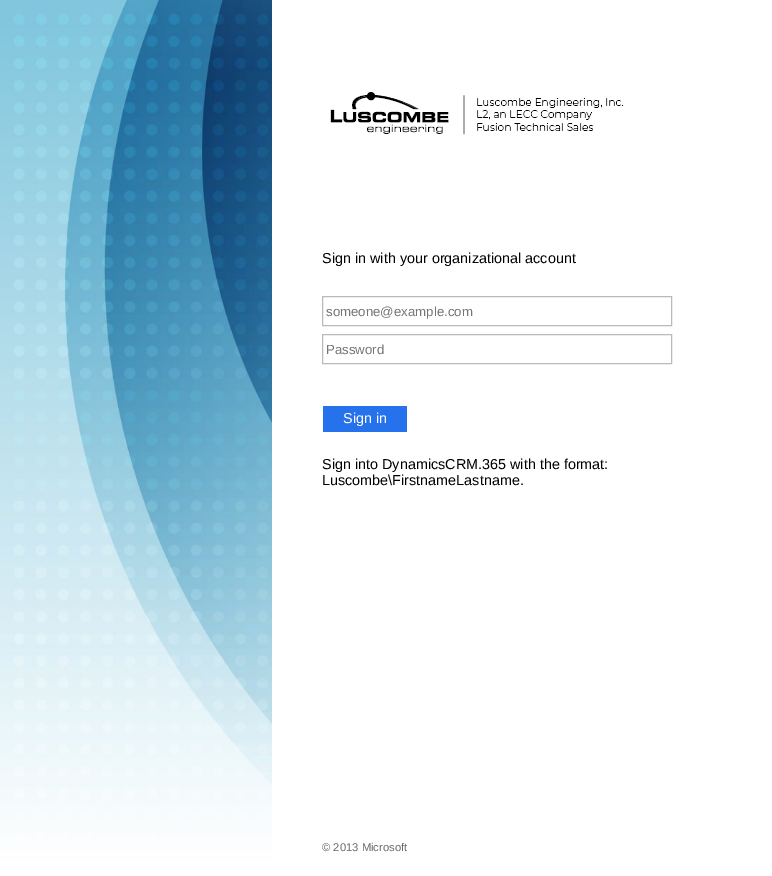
%!PS-Adobe-3.0
%%BoundingBox: 0 0 772 876
%%LanguageLevel: 3
%%Pages: 1
%%EndComments
%%BeginProlog
/setink { 3 { 255 div 3 1 roll } repeat setrgbcolor } def
/usefont { [ exch dup neg 0 0 3 -1 roll 0 0 ] selectfont } def
/drawtext { setink usefont moveto show } def
/fillbox { setink rectfill } def
/drawimage { 5 dict begin { /h /w /y /x /name } { exch def } forall
  gsave x y translate w h scale
  w h 8 [w 0 0 h 0 0] name (r) file false 3 colorimage grestore end } def
%%EndProlog
%%BeginSetup
<< /PageSize [772 876] >> setpagedevice
%%EndSetup
%%Page: 1 1
0 876 translate 1 -1 scale
4 setmiterlimit
0 0 772 876 255 255 255 fillbox
(assets/img1.rgb) 0 0 272 876 drawimage
(assets/img2.rgb) 330 92 294 43 drawimage
(Sign in with your organizational account) 322 263 /LiberationSans-Regular 14.4 0 0 0 drawtext
186 186 186 setink
322.5 296.5 349 29 rectstroke
(someone@example.com) 326 316 /LiberationSans-Regular 13.25 117 117 117 drawtext
186 186 186 setink
322.5 334.5 349 29 rectstroke
(Password) 326 354 /LiberationSans-Regular 13.25 117 117 117 drawtext
323 406 84 26 38 114 236 fillbox
(Sign in) 343 423 /LiberationSans-Regular 14.4 255 255 255 drawtext
(Sign into DynamicsCRM.365 with the format:) 322 469 /LiberationSans-Regular 14.4 0 0 0 drawtext
(Luscombe\\FirstnameLastname.) 322 485 /LiberationSans-Regular 14.4 0 0 0 drawtext
(© 2013 Microsoft) 322 851 /LiberationSans-Regular 11.25 105 105 105 drawtext
showpage
%%EOF
